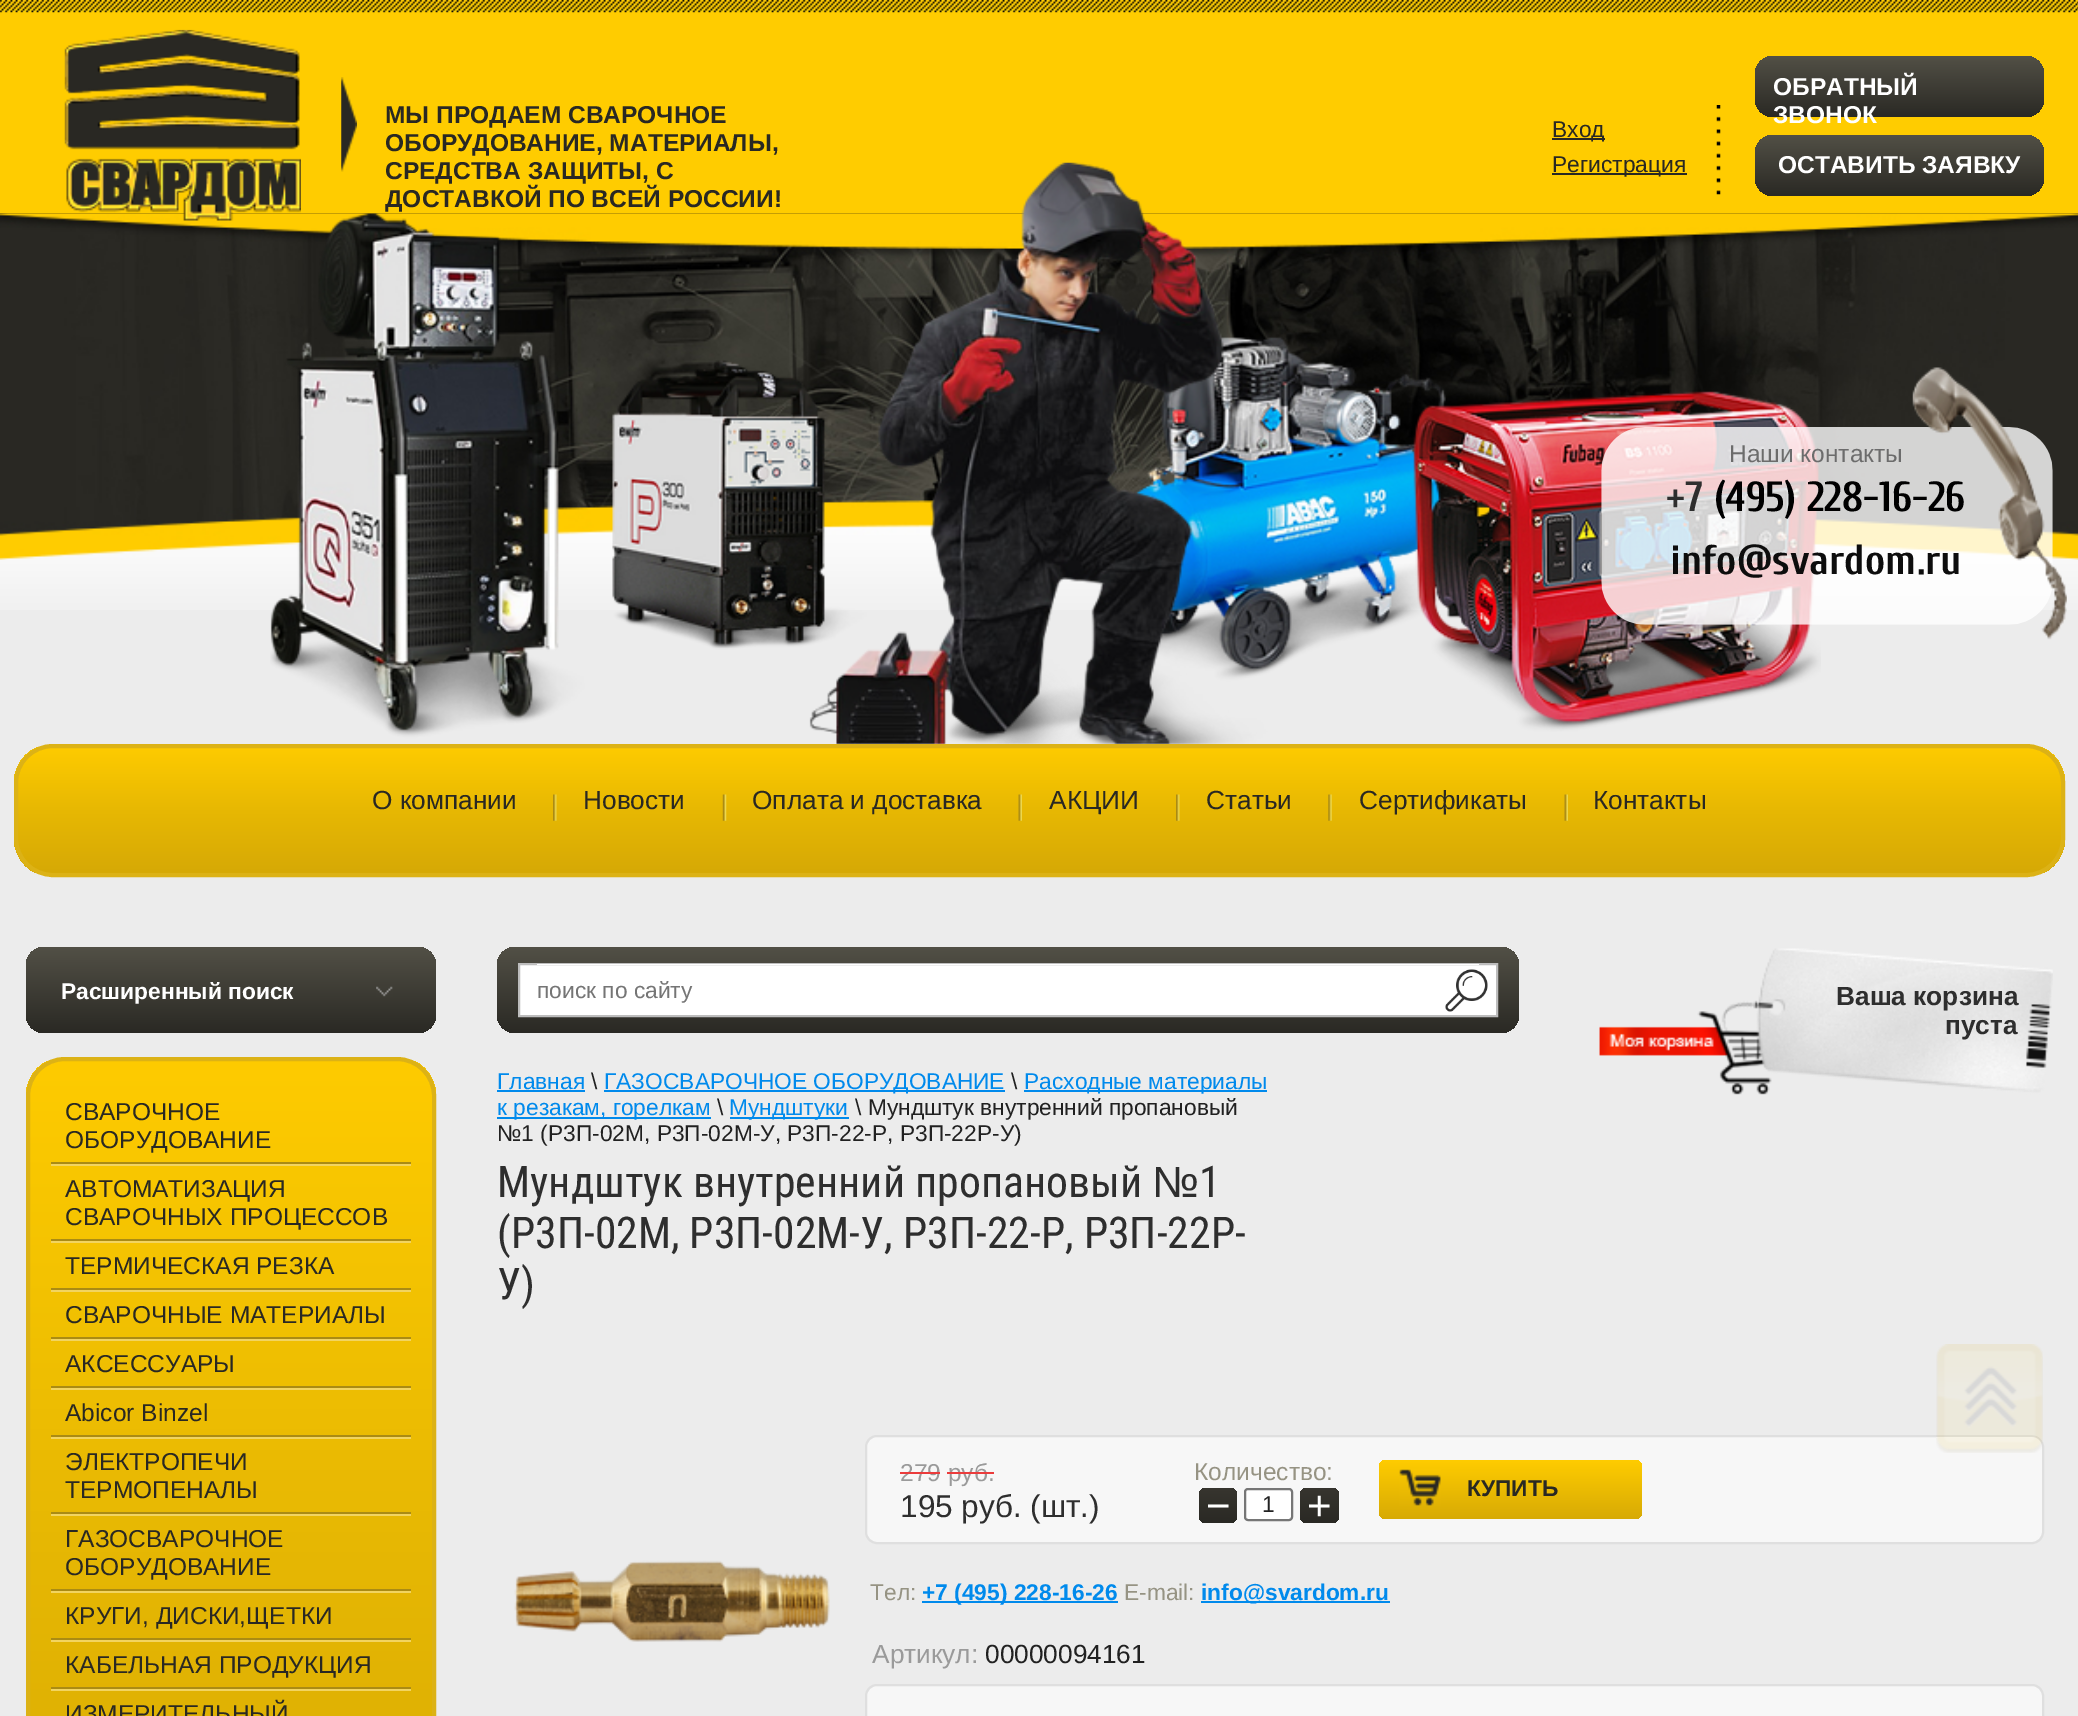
%!PS-Adobe-3.0
%%BoundingBox: 0 0 2078 1716
%%LanguageLevel: 3
%%Pages: 1
%%EndComments
%%BeginProlog
/setink { 3 { 255 div 3 1 roll } repeat setrgbcolor } def
/usefont { [ exch dup neg 0 0 3 -1 roll 0 0 ] selectfont } def
/drawtext { setink usefont moveto show } def
/fillbox { setink rectfill } def
/rrect { 5 dict begin { /r /h /w /y /x } { exch def } forall
  x r add y moveto x w add y 2 copy h add r arct x w add y h add x 1 index r arct
  x y h add x y r arct x y 2 copy exch w add exch r arct closepath end } def
/drawimage { 5 dict begin { /h /w /y /x /name } { exch def } forall
  gsave x y translate w h scale
  w h 8 [w 0 0 h 0 0] name (r) file false 3 colorimage grestore end } def
%%EndProlog
%%BeginSetup
<< /PageSize [2078 1716] >> setpagedevice
%%EndSetup
%%Page: 1 1
0 1716 translate 1 -1 scale
4 setmiterlimit
0 0 2078 1716 236 236 236 fillbox
(assets/img1.rgb) 0 560 2078 50 drawimage
0 12 2078 202 255 204 0 fillbox
(assets/img2.rgb) 0 0 2078 13 drawimage
(assets/img3.rgb) 0 213 2078 1 drawimage
(assets/img4.rgb) 0 213 2078 347 drawimage
(assets/img5.rgb) 270 162 1551 582 drawimage
(assets/img6.rgb) 341 77 16 95 drawimage
(assets/img7.rgb) 64 29 237 192 drawimage
gsave 1755 56 289 61 18 rrect clip newpath
<< /ShadingType 2 /ColorSpace /DeviceRGB /Coords [1900 56 1900 117] /Extend [true true] /Function << /FunctionType 2 /Domain [0 1] /C0 [0.322 0.314 0.275] /C1 [0.165 0.161 0.141] /N 1 >> >> shfill grestore
(ОБРАТНЫЙ) 1773 95 /LiberationSans-Bold 24.5 255 255 255 drawtext
(ЗВОНОК) 1773 123 /LiberationSans-Bold 24.5 255 255 255 drawtext
(МЫ ПРОДАЕМ СВАРОЧНОЕ) 385 123 /LiberationSans-Bold 24.5 41 40 35 drawtext
(ОБОРУДОВАНИЕ, МАТЕРИАЛЫ,) 385 151 /LiberationSans-Bold 24.5 41 40 35 drawtext
(СРЕДСТВА ЗАЩИТЫ, С) 385 179 /LiberationSans-Bold 24.5 41 40 35 drawtext
(ДОСТАВКОЙ ПО ВСЕЙ РОССИИ!) 385 207 /LiberationSans-Bold 24.5 41 40 35 drawtext
(assets/img8.rgb) 1716 105 5 90 drawimage
1552 138 53 2 41 40 35 fillbox
(Вход) 1552 137 /LiberationSans-Regular 22.75 41 40 35 drawtext
1552 173 135 2 41 40 35 fillbox
(Регистрация) 1552 172 /LiberationSans-Regular 22.75 41 40 35 drawtext
gsave 1755 135 289 61 18 rrect clip newpath
<< /ShadingType 2 /ColorSpace /DeviceRGB /Coords [1900 135 1900 196] /Extend [true true] /Function << /FunctionType 2 /Domain [0 1] /C0 [0.322 0.314 0.275] /C1 [0.165 0.161 0.141] /N 1 >> >> shfill grestore
(ОСТАВИТЬ ЗАЯВКУ) 1778 173 /LiberationSans-Bold 24.5 255 255 255 drawtext
(assets/img9.rgb) 1601 427 452 198 drawimage
(Наши контакты) 1729 462 /LiberationSans-Regular 24.5 108 108 108 drawtext
(+7) 1666 511 /Cuprum-Bold 42 46 46 46 drawtext
(assets/img10.rgb) 1912 367 155 273 drawimage
(\(495\) 228-16-26) 1714 511 /Cuprum-Bold 42 0 0 0 drawtext
(info@svardom.ru) 1670 574 /Cuprum-Bold 42 13 13 13 drawtext
gsave
14 744 2051 133 39 rrect clip newpath
gsave 14 747 moveto 2065 747 lineto 2065 873 lineto 14 873 lineto closepath clip newpath
<< /ShadingType 2 /ColorSpace /DeviceRGB /Coords [1040 747 1040 873] /Extend [true true] /Function << /FunctionType 3 /Domain [0 1] /Functions [<< /FunctionType 2 /Domain [0 1] /C0 [0.996 0.796 0] /C1 [0.906 0.722 0.012] /N 1 >> << /FunctionType 2 /Domain [0 1] /C0 [0.906 0.722 0.012] /C1 [0.839 0.663 0.024] /N 1 >>] /Bounds [0.5] /Encode [0 1 0 1] >> >> shfill grestore
grestore
220 178 22 setink
4 setlinewidth
16 746 2047 129 37 rrect stroke
(О компании) 372 809 /LiberationSans-Regular 26.25 41 40 35 drawtext
(assets/img11.rgb) 553 794 4 27 drawimage
(Новости) 583 809 /LiberationSans-Regular 26.25 41 40 35 drawtext
(assets/img12.rgb) 722 794 5 27 drawimage
(Оплата и доставка) 752 809 /LiberationSans-Regular 26.25 41 40 35 drawtext
(assets/img13.rgb) 1018 794 4 27 drawimage
(АКЦИИ) 1049 809 /LiberationSans-Regular 26.25 41 40 35 drawtext
(assets/img11.rgb) 1176 794 4 27 drawimage
(Статьи) 1206 809 /LiberationSans-Regular 26.25 41 40 35 drawtext
(assets/img14.rgb) 1328 794 4 27 drawimage
(Сертификаты) 1359 809 /LiberationSans-Regular 26.25 41 40 35 drawtext
(assets/img13.rgb) 1564 794 4 27 drawimage
(Контакты) 1593 809 /LiberationSans-Regular 26.25 41 40 35 drawtext
gsave 26 947 410 86 18 rrect clip newpath
<< /ShadingType 2 /ColorSpace /DeviceRGB /Coords [231 947 231 1033] /Extend [true true] /Function << /FunctionType 2 /Domain [0 1] /C0 [0.322 0.314 0.275] /C1 [0.165 0.161 0.141] /N 1 >> >> shfill grestore
(Расширенный поиск) 61 999 /LiberationSans-Bold 22.75 255 255 255 drawtext
(assets/img15.rgb) 376 986 17 11 drawimage
gsave
26 1057 410 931 39 rrect clip newpath
gsave 26 1061 moveto 436 1061 lineto 436 1716 lineto 26 1716 lineto closepath clip newpath
<< /ShadingType 2 /ColorSpace /DeviceRGB /Coords [231 1061 231 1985] /Extend [true true] /Function << /FunctionType 3 /Domain [0 1] /Functions [<< /FunctionType 2 /Domain [0 1] /C0 [0.996 0.796 0] /C1 [0.906 0.722 0.012] /N 1 >> << /FunctionType 2 /Domain [0 1] /C0 [0.906 0.722 0.012] /C1 [0.839 0.663 0.024] /N 1 >>] /Bounds [0.5] /Encode [0 1 0 1] >> >> shfill grestore
grestore
220 178 22 setink
28 1059 406 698 37 rrect stroke
(СВАРОЧНОЕ) 65 1120 /LiberationSans-Regular 24.5 41 40 35 drawtext
(ОБОРУДОВАНИЕ) 65 1148 /LiberationSans-Regular 24.5 41 40 35 drawtext
51 1162 360 2 170 139 20 fillbox
51 1164 360 2 242 212 96 fillbox
(АВТОМАТИЗАЦИЯ) 65 1197 /LiberationSans-Regular 24.5 41 40 35 drawtext
(СВАРОЧНЫХ ПРОЦЕССОВ) 65 1225 /LiberationSans-Regular 24.5 41 40 35 drawtext
51 1239 360 2 170 139 20 fillbox
51 1241 360 2 242 212 96 fillbox
(ТЕРМИЧЕСКАЯ РЕЗКА) 65 1274 /LiberationSans-Regular 24.5 41 40 35 drawtext
51 1288 360 2 170 139 20 fillbox
51 1290 360 2 242 212 96 fillbox
(СВАРОЧНЫЕ МАТЕРИАЛЫ) 65 1323 /LiberationSans-Regular 24.5 41 40 35 drawtext
51 1337 360 2 170 139 20 fillbox
51 1339 360 2 242 212 96 fillbox
(АКСЕССУАРЫ) 65 1372 /LiberationSans-Regular 24.5 41 40 35 drawtext
51 1386 360 2 170 139 20 fillbox
51 1388 360 2 242 212 96 fillbox
(Abicor Binzel) 65 1421 /LiberationSans-Regular 24.5 41 40 35 drawtext
51 1435 360 2 170 139 20 fillbox
51 1437 360 2 242 212 96 fillbox
(ЭЛЕКТРОПЕЧИ) 65 1470 /LiberationSans-Regular 24.5 41 40 35 drawtext
(ТЕРМОПЕНАЛЫ) 65 1498 /LiberationSans-Regular 24.5 41 40 35 drawtext
51 1512 360 2 170 139 20 fillbox
51 1514 360 2 242 212 96 fillbox
(ГАЗОСВАРОЧНОЕ) 65 1547 /LiberationSans-Regular 24.5 41 40 35 drawtext
(ОБОРУДОВАНИЕ) 65 1575 /LiberationSans-Regular 24.5 41 40 35 drawtext
51 1589 360 2 170 139 20 fillbox
51 1591 360 2 242 212 96 fillbox
(КРУГИ, ДИСКИ,ЩЕТКИ) 65 1624 /LiberationSans-Regular 24.5 41 40 35 drawtext
51 1638 360 2 170 139 20 fillbox
51 1640 360 2 242 212 96 fillbox
(КАБЕЛЬНАЯ ПРОДУКЦИЯ) 65 1673 /LiberationSans-Regular 24.5 41 40 35 drawtext
51 1687 360 2 170 139 20 fillbox
51 1689 360 2 242 212 96 fillbox
(ИЗМЕРИТЕЛЬНЫЙ) 65 1722 /LiberationSans-Regular 24.5 41 40 35 drawtext
gsave 497 947 1022 86 18 rrect clip newpath
<< /ShadingType 2 /ColorSpace /DeviceRGB /Coords [1008 947 1008 1033] /Extend [true true] /Function << /FunctionType 2 /Domain [0 1] /C0 [0.322 0.314 0.275] /C1 [0.165 0.161 0.141] /N 1 >> >> shfill grestore
255 255 255 setink
519 964 moveto 1497 964 lineto 1497 1016 lineto 519 1016 lineto closepath gsave fill grestore
189 189 189 setink
2 setlinewidth
stroke
537 964 942 1 255 255 255 fillbox
(поиск по сайту) 537 998 /LiberationSans-Regular 22.75 117 117 117 drawtext
(assets/img16.rgb) 1445 969 43 43 drawimage
(assets/img17.rgb) 1599 948 454 147 drawimage
(Ваша корзина) 1836 1005 /LiberationSans-Bold 26.25 46 46 46 drawtext
(пуста) 1945 1034 /LiberationSans-Bold 26.25 46 46 46 drawtext
(Главная) 497 1089 /LiberationSans-Regular 22.75 0 138 236 drawtext
497 1090 88 2 0 138 236 fillbox
(\\) 591 1089 /LiberationSans-Regular 22.75 33 33 33 drawtext
604 1090 401 2 0 138 236 fillbox
(ГАЗОСВАРОЧНОЕ ОБОРУДОВАНИЕ) 604 1089 /LiberationSans-Regular 22.75 0 138 236 drawtext
(\\) 1011 1089 /LiberationSans-Regular 22.75 33 33 33 drawtext
1024 1090 243 2 0 138 236 fillbox
(Расходные материалы) 1024 1089 /LiberationSans-Regular 22.75 0 138 236 drawtext
497 1117 214 2 0 138 236 fillbox
(к резакам, горелкам) 497 1115 /LiberationSans-Regular 22.75 0 138 236 drawtext
(\\) 717 1115 /LiberationSans-Regular 22.75 33 33 33 drawtext
730 1117 119 2 0 138 236 fillbox
(Мундштуки) 729 1115 /LiberationSans-Regular 22.75 0 138 236 drawtext
(\\ Мундштук внутренний пропановый) 855 1115 /LiberationSans-Regular 22.75 33 33 33 drawtext
(№1 \(Р3П-02М, Р3П-02М-У, Р3П-22-Р, Р3П-22Р-У\)) 497 1141 /LiberationSans-Regular 22.75 33 33 33 drawtext
(Мундштук внутренний пропановый) 497 1197 /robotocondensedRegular-Regular 43.75 46 46 46 drawtext
(№) 1152 1197 /LiberationSans-Regular 43.75 46 46 46 drawtext
(1) 1199 1197 /robotocondensedRegular-Regular 43.75 46 46 46 drawtext
(\(Р3П-02М, Р3П-02М-У, Р3П-22-Р, Р3П-22Р-) 497 1248 /robotocondensedRegular-Regular 43.75 46 46 46 drawtext
(У\)) 497 1299 /robotocondensedRegular-Regular 43.75 46 46 46 drawtext
(assets/img18.rgb) 514 1560 316 82 drawimage
247 247 247 setink
866 1436 1177 107 11 rrect gsave fill grestore
223 223 223 setink
stroke
(279 руб.) 900 1481 /LiberationSans-Regular 24.5 154 154 154 drawtext
900 1472 40 2 235 60 60 fillbox
947 1472 47 2 235 60 60 fillbox
(195 руб. \(шт.\)) 900 1517 /LiberationSans-Regular 31.5 46 46 46 drawtext
(Количество:) 1194 1480 /LiberationSans-Regular 24.5 150 147 131 drawtext
gsave 1199 1488 38 35 7 rrect clip newpath
<< /ShadingType 2 /ColorSpace /DeviceRGB /Coords [1218 1488 1218 1523] /Extend [true true] /Function << /FunctionType 2 /Domain [0 1] /C0 [0.216 0.208 0.184] /C1 [0.165 0.161 0.141] /N 1 >> >> shfill grestore
(−) 1206 1520 /LiberationSans-Regular 42 255 255 255 drawtext
1245 1489 47 31 3 rrect gsave fill grestore
118 118 118 setink
stroke
(1) 1262 1512 /LiberationSans-Regular 22.75 33 33 33 drawtext
gsave 1300 1488 39 35 7 rrect clip newpath
<< /ShadingType 2 /ColorSpace /DeviceRGB /Coords [1320 1488 1320 1523] /Extend [true true] /Function << /FunctionType 2 /Domain [0 1] /C0 [0.216 0.208 0.184] /C1 [0.165 0.161 0.141] /N 1 >> >> shfill grestore
(+) 1307 1520 /LiberationSans-Regular 42 255 255 255 drawtext
gsave 1379 1460 263 59 7 rrect clip newpath
<< /ShadingType 2 /ColorSpace /DeviceRGB /Coords [1510 1460 1510 1519] /Extend [true true] /Function << /FunctionType 2 /Domain [0 1] /C0 [1 0.8 0] /C1 [0.843 0.667 0.02] /N 1 >> >> shfill grestore
(assets/img19.rgb) 1399 1469 42 37 drawimage
(КУПИТЬ) 1467 1496 /LiberationSans-Bold 22.75 41 40 35 drawtext
(Тел:) 870 1600 /LiberationSans-Regular 22.75 150 147 131 drawtext
922 1601 196 2 0 138 236 fillbox
(+7 \(495\) 228-16-26) 922 1600 /LiberationSans-Bold 22.75 0 138 236 drawtext
(E-mail:) 1124 1600 /LiberationSans-Regular 22.75 150 147 131 drawtext
1201 1601 189 2 0 138 236 fillbox
(info@svardom.ru) 1201 1600 /LiberationSans-Bold 22.75 0 138 236 drawtext
(Артикул:) 872 1663 /LiberationSans-Regular 26.25 154 154 154 drawtext
(00000094161) 985 1663 /LiberationSans-Regular 26.25 33 33 33 drawtext
247 247 247 setink
866 1685 1177 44 11 rrect gsave fill grestore
223 223 223 setink
stroke
(assets/img20.rgb) 1936 1344 107 109 drawimage
showpage
%%EOF
